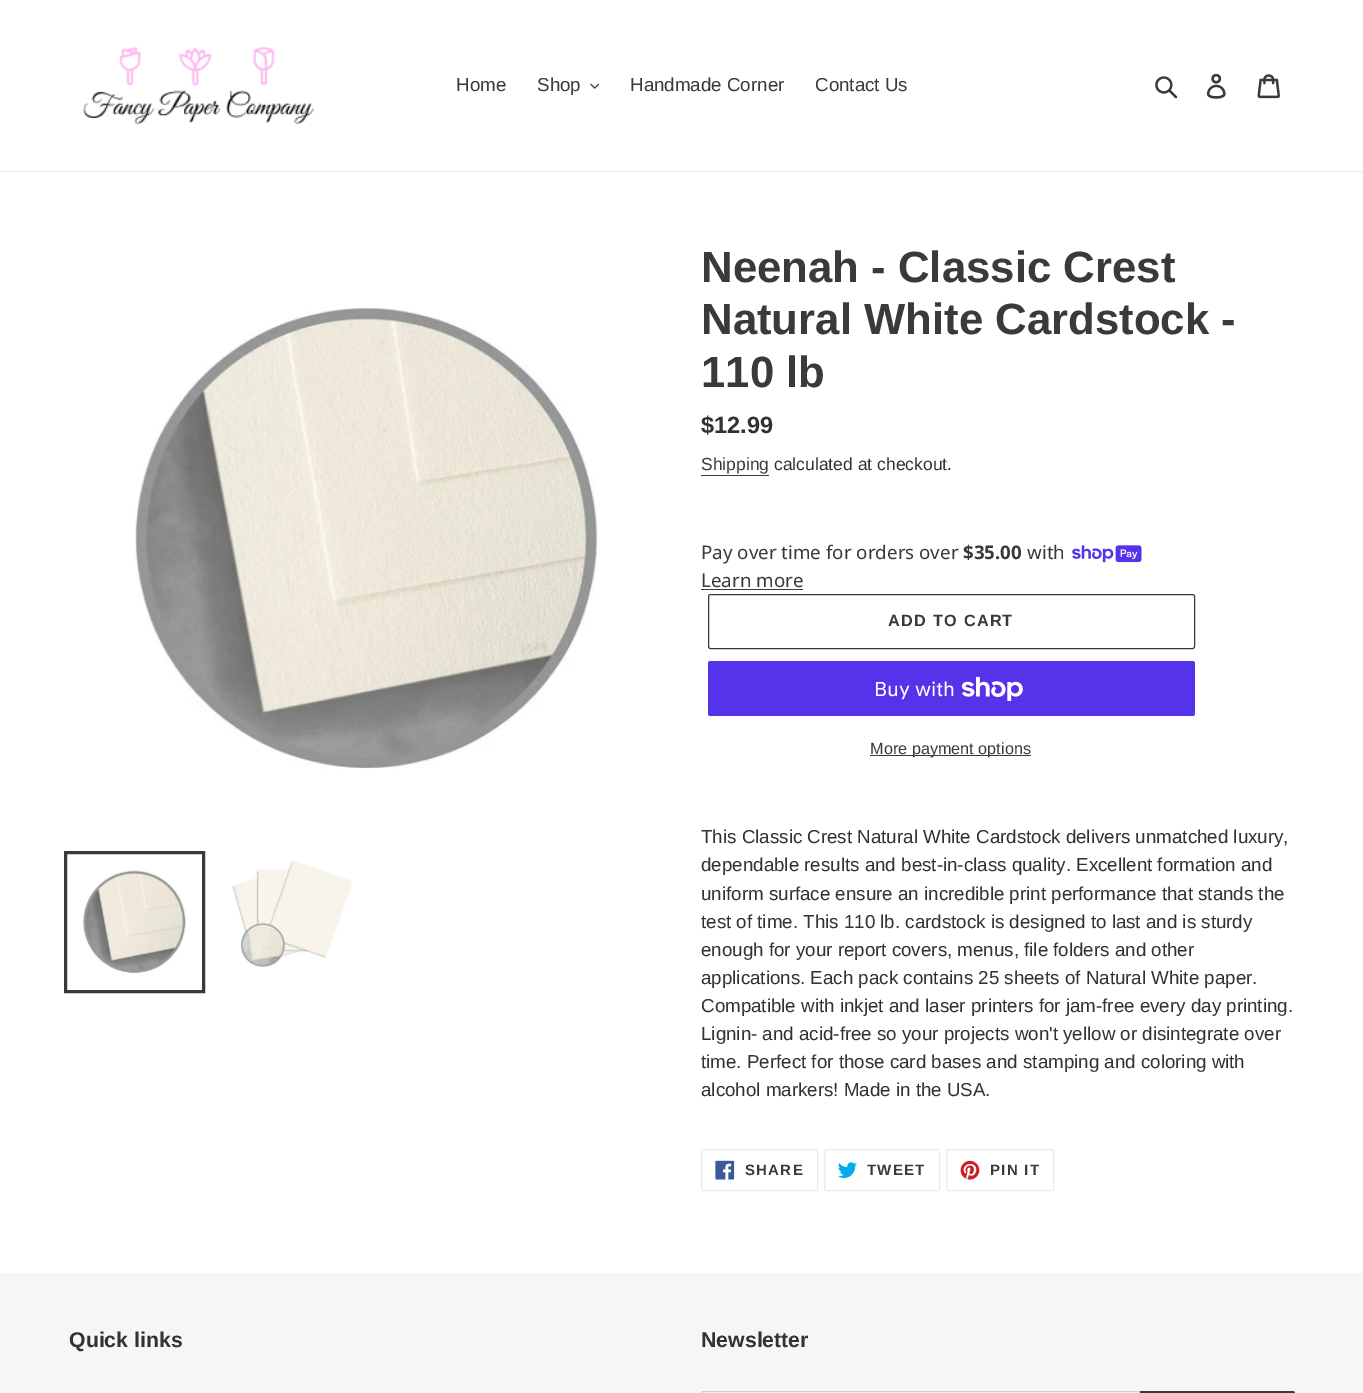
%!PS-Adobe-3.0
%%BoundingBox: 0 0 1363 1393
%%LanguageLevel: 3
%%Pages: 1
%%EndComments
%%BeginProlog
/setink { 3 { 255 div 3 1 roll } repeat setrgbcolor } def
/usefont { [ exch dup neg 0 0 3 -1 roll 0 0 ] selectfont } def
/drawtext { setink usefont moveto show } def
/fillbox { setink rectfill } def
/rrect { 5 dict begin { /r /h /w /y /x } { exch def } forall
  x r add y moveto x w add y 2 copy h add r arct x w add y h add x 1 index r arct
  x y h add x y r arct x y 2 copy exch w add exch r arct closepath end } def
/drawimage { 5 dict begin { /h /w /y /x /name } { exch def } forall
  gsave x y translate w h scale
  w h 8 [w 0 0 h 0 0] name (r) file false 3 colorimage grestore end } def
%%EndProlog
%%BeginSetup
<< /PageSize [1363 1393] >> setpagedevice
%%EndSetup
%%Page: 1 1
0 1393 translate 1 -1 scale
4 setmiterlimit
0 0 1363 1393 255 255 255 fillbox
0 171 1363 1 235 235 235 fillbox
(assets/img1.rgb) 82 47 232 78 drawimage
(Home) 456 91 /LiberationSans-Regular 18.75 58 58 58 drawtext
(Shop) 537 91 /LiberationSans-Regular 18.75 58 58 58 drawtext
(assets/img2.rgb) 590 83 9 6 drawimage
(Handmade Corner) 630 91 /LiberationSans-Regular 18.75 58 58 58 drawtext
(Contact Us) 815 91 /LiberationSans-Regular 18.75 58 58 58 drawtext
(assets/img3.rgb) 1155 76 23 23 drawimage
(assets/img4.rgb) 1206 74 20 25 drawimage
(assets/img5.rgb) 1257 74 23 25 drawimage
(assets/img6.rgb) 135 308 463 461 drawimage
3 setlinewidth
65.5 852.5 138 139 rectstroke
(assets/img7.rgb) 83 870 103 104 drawimage
(assets/img8.rgb) 232 860 120 107 drawimage
(Neenah - Classic Crest) 701 282 /LiberationSans-Bold 43.75 58 58 58 drawtext
(Natural White Cardstock -) 701 334 /LiberationSans-Bold 43.75 58 58 58 drawtext
(110 lb) 701 387 /LiberationSans-Bold 43.75 58 58 58 drawtext
($12.99) 701 433 /LiberationSans-Bold 23.5 51 50 50 drawtext
(Shipping) 701 470 /LiberationSans-Regular 17.5 58 58 58 drawtext
701 475 68 1 58 58 58 fillbox
(calculated at checkout.) 774 470 /LiberationSans-Regular 17.5 51 50 50 drawtext
(Pay over time for orders over) 701 559 /NotoSans-Regular 18.75 58 58 58 drawtext
($35.00) 963 559 /NotoSans-Bold 18.75 58 58 58 drawtext
(with) 1027 559 /NotoSans-Regular 18.75 58 58 58 drawtext
(assets/img9.rgb) 1072 545 70 18 drawimage
(Learn more) 701 587 /NotoSans-Regular 18.75 58 58 58 drawtext
701 589 102 1 58 58 58 fillbox
1 setlinewidth
708.5 594.5 486 54 2 rrect stroke
/LiberationSans-Bold 16.25 usefont
888 626 moveto 1.25 0 (ADD TO CART) ashow
84 51 235 setink
708 661 487 55 2.5 rrect fill
(Buy with) 874 696 /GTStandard-Regular 20 255 255 255 drawtext
(assets/img10.rgb) 961 676 62 25 drawimage
870 755 161 1 58 58 58 fillbox
(More payment options) 870 754 /LiberationSans-Regular 16.25 58 58 58 drawtext
(This Classic Crest Natural White Cardstock delivers unmatched luxury,) 701 843 /LiberationSans-Regular 18.75 51 50 50 drawtext
(dependable results and best-in-class quality. Excellent formation and) 701 871 /LiberationSans-Regular 18.75 51 50 50 drawtext
(uniform surface ensure an incredible print performance that stands the) 701 900 /LiberationSans-Regular 18.75 51 50 50 drawtext
(test of time. This 110 lb. cardstock is designed to last and is sturdy) 701 928 /LiberationSans-Regular 18.75 51 50 50 drawtext
(enough for your report covers, menus, file folders and other) 701 956 /LiberationSans-Regular 18.75 51 50 50 drawtext
(applications. Each pack contains 25 sheets of Natural White paper.) 701 984 /LiberationSans-Regular 18.75 51 50 50 drawtext
(Compatible with inkjet and laser printers for jam-free every day printing.) 701 1012 /LiberationSans-Regular 18.75 51 50 50 drawtext
(Lignin- and acid-free so your projects won't yellow or disintegrate over) 701 1040 /LiberationSans-Regular 18.75 51 50 50 drawtext
(time. Perfect for those card bases and stamping and coloring with) 701 1068 /LiberationSans-Regular 18.75 51 50 50 drawtext
(alcohol markers! Made in the USA.) 701 1096 /LiberationSans-Regular 18.75 51 50 50 drawtext
235 235 235 setink
701.5 1149.5 116 41 2 rrect stroke
(assets/img11.rgb) 715 1160 20 20 drawimage
/LiberationSans-Bold 15 usefont
58 58 58 setink
745 1175 moveto 1.25 0 (SHARE) ashow
235 235 235 setink
824.5 1149.5 115 41 2 rrect stroke
(assets/img12.rgb) 838 1162 19 16 drawimage
58 58 58 setink
867 1175 moveto 1.25 0 (TWEET) ashow
235 235 235 setink
946.5 1149.5 107 41 2 rrect stroke
(assets/img13.rgb) 960 1160 20 20 drawimage
58 58 58 setink
990 1175 moveto 1.25 0 (PIN IT) ashow
0 1273 1363 120 246 246 246 fillbox
(Quick links) 69 1347 /LiberationSans-Bold 21.25 51 50 50 drawtext
(Newsletter) 701 1347 /LiberationSans-Bold 21.25 51 50 50 drawtext
255 255 255 setink
703.5 1391.5 moveto 1139.5 1391.5 lineto 1139.5 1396.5 lineto 703.5 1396.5 lineto 702.5 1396.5 701.5 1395.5 701.5 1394.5 curveto 701.5 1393.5 lineto 701.5 1392.5 702.5 1391.5 703.5 1391.5 curveto closepath gsave fill grestore
204 204 204 setink
stroke
58 58 58 setink
1140 1391 moveto 1292.5 1391 lineto 1294 1391 1295 1392 1295 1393.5 curveto 1295 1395 1294 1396 1292.5 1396 curveto 1140 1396 lineto closepath fill
showpage
%%EOF
